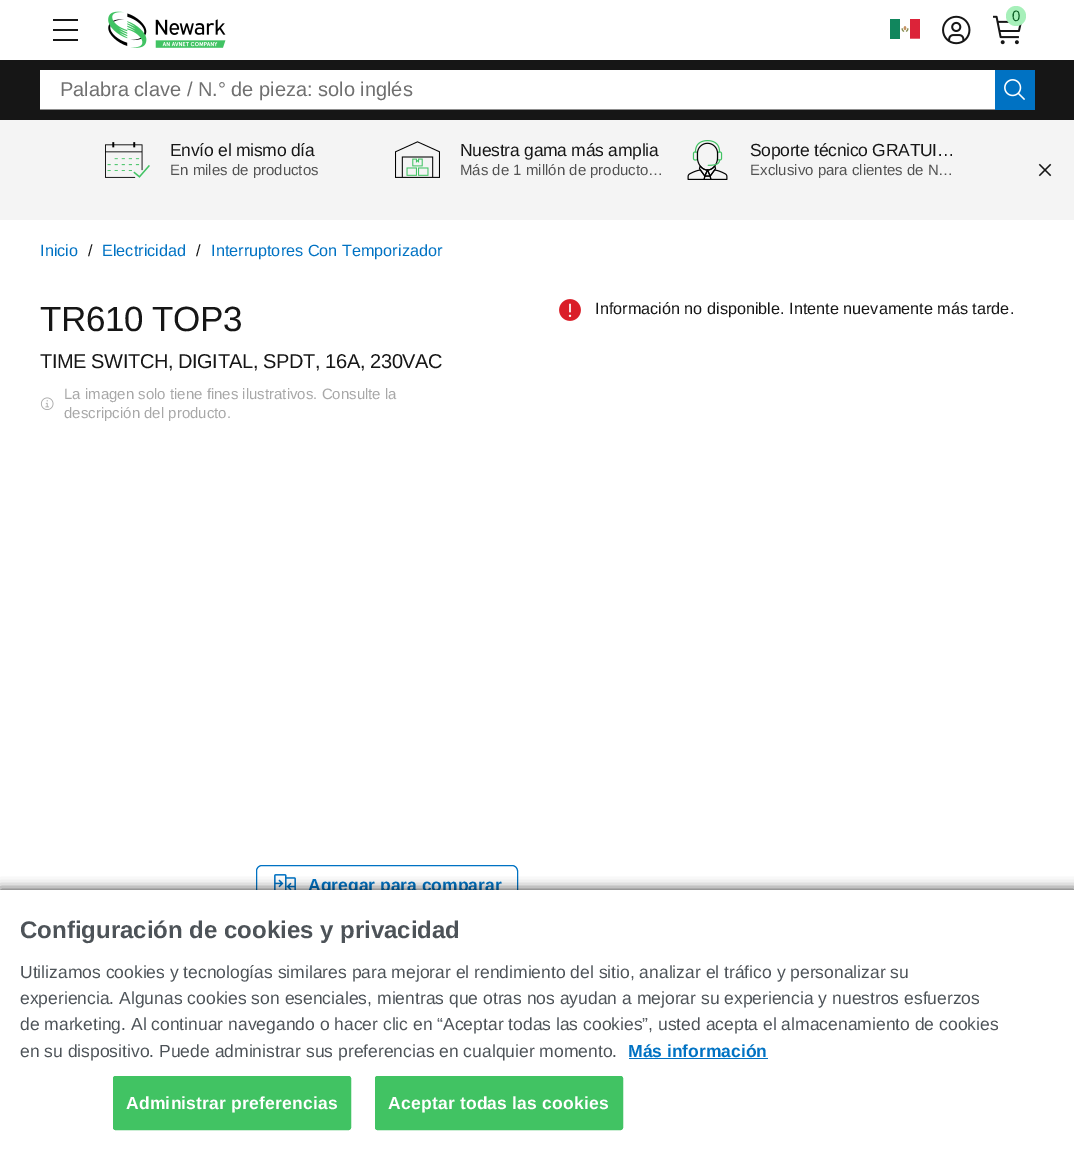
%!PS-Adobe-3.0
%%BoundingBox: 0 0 1074 1150
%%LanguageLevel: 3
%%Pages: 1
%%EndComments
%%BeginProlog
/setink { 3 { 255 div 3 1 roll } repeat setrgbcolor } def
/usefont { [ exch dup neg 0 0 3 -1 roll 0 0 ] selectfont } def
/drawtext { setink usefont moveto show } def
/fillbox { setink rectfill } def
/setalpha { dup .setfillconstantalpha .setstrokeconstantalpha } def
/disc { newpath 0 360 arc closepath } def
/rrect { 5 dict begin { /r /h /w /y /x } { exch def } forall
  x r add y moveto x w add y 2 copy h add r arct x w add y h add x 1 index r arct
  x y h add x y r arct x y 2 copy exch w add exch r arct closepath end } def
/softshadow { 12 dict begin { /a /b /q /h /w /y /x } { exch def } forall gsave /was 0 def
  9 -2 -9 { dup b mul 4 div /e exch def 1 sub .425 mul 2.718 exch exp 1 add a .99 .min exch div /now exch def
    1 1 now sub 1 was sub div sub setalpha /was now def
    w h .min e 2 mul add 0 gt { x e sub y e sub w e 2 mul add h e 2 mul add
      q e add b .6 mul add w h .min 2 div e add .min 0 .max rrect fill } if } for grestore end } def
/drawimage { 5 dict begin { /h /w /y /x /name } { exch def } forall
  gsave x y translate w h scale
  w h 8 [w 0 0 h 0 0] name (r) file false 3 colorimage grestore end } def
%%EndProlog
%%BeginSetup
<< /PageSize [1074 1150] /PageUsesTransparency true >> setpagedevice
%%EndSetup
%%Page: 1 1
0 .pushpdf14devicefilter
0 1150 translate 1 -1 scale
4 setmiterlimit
0 0 1074 1150 255 255 255 fillbox
53 19 25 2 22 22 22 fillbox
53 29 25 2 22 22 22 fillbox
53 39 25 2 22 22 22 fillbox
(assets/img1.rgb) 108 11 118 37 drawimage
(assets/img2.rgb) 890 19 30 20 drawimage
(assets/img3.rgb) 942 15 29 30 drawimage
(assets/img4.rgb) 993 15 29 30 drawimage
167 240 186 setink
1016 16 10 disc fill
(0) 1012 21 /LiberationSans-Regular 15 14 96 39 drawtext
0 60 1074 60 22 22 22 fillbox
40 70 955 39 255 255 255 fillbox
40 109 955 1 141 141 141 fillbox
(Palabra clave / N.° de pieza: solo inglés) 60 96 /LiberationSans-Regular 20 111 111 111 drawtext
995 70 40 40 0 114 195 fillbox
(assets/img5.rgb) 1004 79 21 21 drawimage
0 120 1074 100 244 244 244 fillbox
(assets/img6.rgb) 105 142 45 36 drawimage
/LiberationSans-Regular 17.5 usefont
22 22 22 setink
170 156 moveto -0.25 0 (Envío el mismo día) ashow
(En miles de productos) 170 175 /LiberationSans-Regular 15 82 82 82 drawtext
(assets/img7.rgb) 395 141 45 37 drawimage
/LiberationSans-Regular 17.5 usefont
22 22 22 setink
460 156 moveto -0.25 0 (Nuestra gama más amplia) ashow
(Más de 1 millón de producto…) 460 175 /LiberationSans-Regular 15 82 82 82 drawtext
(assets/img8.rgb) 687 140 41 40 drawimage
/LiberationSans-Regular 17.5 usefont
22 22 22 setink
750 156 moveto -0.25 0 (Soporte técnico GRATUI…) ashow
(Exclusivo para clientes de N…) 750 175 /LiberationSans-Regular 15 82 82 82 drawtext
(assets/img9.rgb) 1038 163 14 14 drawimage
(Inicio) 40 256 /LiberationSans-Regular 16.25 0 114 195 drawtext
(/) 88 256 /LiberationSans-Regular 16.25 22 22 22 drawtext
(Electricidad) 102 256 /LiberationSans-Regular 16.25 0 114 195 drawtext
(/) 196 256 /LiberationSans-Regular 16.25 22 22 22 drawtext
(Interruptores Con Temporizador) 211 256 /LiberationSans-Regular 16.25 0 114 195 drawtext
/LiberationSans-Regular 35 usefont
22 22 22 setink
40 331 moveto -0.4 0 (TR610 TOP3) ashow
/LiberationSans-Regular 20 usefont
40 368 moveto -0.4 0 (TIME SWITCH, DIGITAL, SPDT, 16A, 230VAC) ashow
(assets/img10.rgb) 40 397 14 13 drawimage
(La imagen solo tiene fines ilustrativos. Consulte la) 64 399 /LiberationSans-Regular 15 168 168 168 drawtext
(descripción del producto.) 64 418 /LiberationSans-Regular 15 168 168 168 drawtext
0 114 195 setink
256.5 865.5 261 39 5.5 rrect stroke
(assets/img11.rgb) 274 874 22 16 drawimage
(Agregar para comparar) 308 891 /LiberationSans-Bold 17.5 0 114 195 drawtext
(assets/img12.rgb) 559 299 22 22 drawimage
(Información no disponible. Intente nuevamente más tarde.) 595 314 /LiberationSans-Regular 16.25 22 22 22 drawtext
0 0 0 setink
0 890 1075 260 0 6 0.8 softshadow
0 890 1074 260 255 255 255 fillbox
(Configuración de cookies y privacidad) 20 938 /LiberationSans-Bold 24 77 83 88 drawtext
(Utilizamos cookies y tecnologías similares para mejorar el rendimiento del sitio, analizar el tráfico y personalizar su) 20 978 /LiberationSans-Regular 17.5 77 83 88 drawtext
(experiencia. Algunas cookies son esenciales, mientras que otras nos ayudan a mejorar su experiencia y nuestros esfuerzos) 20 1004 /LiberationSans-Regular 17.5 77 83 88 drawtext
(de marketing. Al continuar navegando o hacer clic en “Aceptar todas las cookies”, usted acepta el almacenamiento de cookies) 20 1030 /LiberationSans-Regular 17.5 77 83 88 drawtext
(en su dispositivo. Puede administrar sus preferencias en cualquier momento.) 20 1057 /LiberationSans-Regular 17.5 77 83 88 drawtext
(Más información) 628 1057 /LiberationSans-Bold 17.5 0 114 195 drawtext
629 1058 139 1 0 114 195 fillbox
65 195 99 setink
113.5 1076.5 237 53 2 rrect gsave fill grestore
stroke
255 255 255 setink
126 1109 moveto 0.2 0 (Administrar preferencias) ashow
65 195 99 setink
375.5 1076.5 247 53 2 rrect gsave fill grestore
stroke
255 255 255 setink
388 1109 moveto 0.2 0 (Aceptar todas las cookies) ashow
.poppdf14devicefilter showpage
%%EOF
